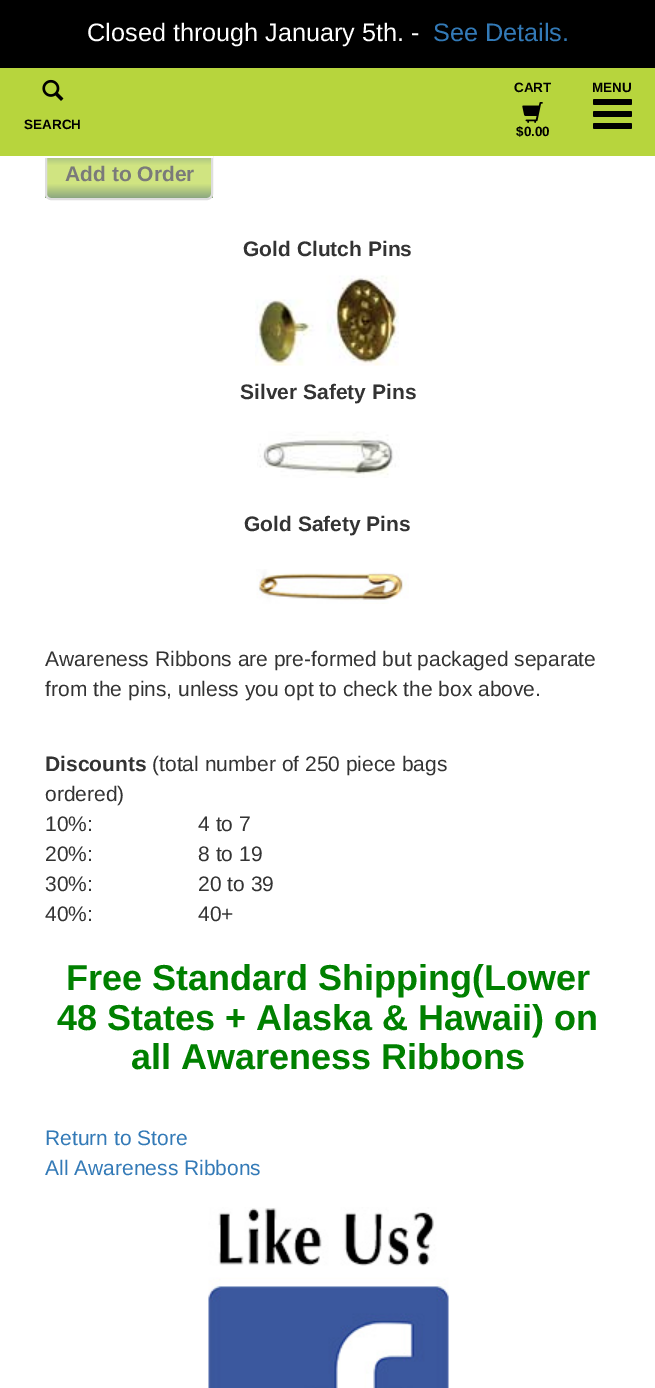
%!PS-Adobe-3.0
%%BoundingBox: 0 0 655 1388
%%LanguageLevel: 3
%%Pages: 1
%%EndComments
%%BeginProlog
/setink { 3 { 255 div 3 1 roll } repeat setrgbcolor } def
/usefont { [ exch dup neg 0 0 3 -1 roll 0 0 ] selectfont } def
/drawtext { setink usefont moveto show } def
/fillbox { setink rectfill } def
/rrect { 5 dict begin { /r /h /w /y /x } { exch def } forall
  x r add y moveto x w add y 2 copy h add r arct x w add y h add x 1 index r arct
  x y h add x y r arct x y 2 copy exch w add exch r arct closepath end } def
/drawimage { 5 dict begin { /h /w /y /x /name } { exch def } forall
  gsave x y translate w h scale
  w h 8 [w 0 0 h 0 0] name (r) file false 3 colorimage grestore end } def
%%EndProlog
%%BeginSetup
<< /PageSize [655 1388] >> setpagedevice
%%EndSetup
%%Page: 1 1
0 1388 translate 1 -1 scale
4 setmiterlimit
0 0 655 1388 255 255 255 fillbox
0 0 655 68 0 0 0 fillbox
(Closed through January 5th. -) 87 41 /LiberationSans-Regular 25.25 255 255 255 drawtext
(See Details.) 433 41 /LiberationSans-Regular 25.25 51 122 183 drawtext
gsave
45 149 168 51 6 rrect clip newpath
gsave 45 158 moveto 213 158 lineto 213 198 lineto 45 198 lineto closepath clip newpath
<< /ShadingType 2 /ColorSpace /DeviceRGB /Coords [129 150 129 198] /Extend [true true] /Function << /FunctionType 3 /Domain [0 1] /Functions [<< /FunctionType 2 /Domain [0 1] /C0 [0.549 0.655 0.502] /C1 [0.816 0.894 0.506] /N 1 >> << /FunctionType 2 /Domain [0 1] /C0 [0.816 0.894 0.506] /C1 [0.816 0.894 0.506] /N 1 >> << /FunctionType 2 /Domain [0 1] /C0 [0.816 0.894 0.506] /C1 [0.549 0.655 0.502] /N 1 >>] /Bounds [0.32 0.7] /Encode [0 1 0 1 0 1] >> >> shfill grestore
grestore
222 222 222 setink
2 setlinewidth
46 150 166 49 5 rrect stroke
45 156 168 2 255 255 255 fillbox
0 68 655 88 183 213 61 fillbox
(CART) 514 92 /LiberationSans-Bold 13.5 0 0 0 drawtext
(assets/img1.rgb) 522 102 21 21 drawimage
($0.00) 516 136 /LiberationSans-Bold 13.5 0 0 0 drawtext
(MENU) 592 92 /LiberationSans-Bold 13.5 0 0 0 drawtext
593 99 39 6 1.5 rrect fill
593 111 39 6 1.5 rrect fill
593 123 39 6 1.5 rrect fill
(assets/img2.rgb) 42 79 22 22 drawimage
(SEARCH) 24 129 /LiberationSans-Bold 13.5 0 0 0 drawtext
(Add to Order) 65 181 /LiberationSans-Bold 21 122 122 122 drawtext
(Gold Clutch Pins) 243 256 /LiberationSans-Bold 21 51 51 51 drawtext
(assets/img3.rgb) 255 275 144 91 drawimage
(Silver Safety Pins) 240 399 /LiberationSans-Bold 21 51 51 51 drawtext
(assets/img4.rgb) 257 431 143 47 drawimage
(Gold Safety Pins) 244 531 /LiberationSans-Bold 21 51 51 51 drawtext
(assets/img5.rgb) 256 569 153 35 drawimage
(Awareness Ribbons are pre-formed but packaged separate) 45 666 /LiberationSans-Regular 21 51 51 51 drawtext
(from the pins, unless you opt to check the box above.) 45 696 /LiberationSans-Regular 21 51 51 51 drawtext
(Discounts) 45 771 /LiberationSans-Bold 21 51 51 51 drawtext
(\(total number of 250 piece bags) 152 771 /LiberationSans-Regular 21 51 51 51 drawtext
(ordered\)) 45 801 /LiberationSans-Regular 21 51 51 51 drawtext
(10%:) 45 831 /LiberationSans-Regular 21 51 51 51 drawtext
(4 to 7) 198 831 /LiberationSans-Regular 21 51 51 51 drawtext
(20%:) 45 861 /LiberationSans-Regular 21 51 51 51 drawtext
(8 to 19) 198 861 /LiberationSans-Regular 21 51 51 51 drawtext
(30%:) 45 891 /LiberationSans-Regular 21 51 51 51 drawtext
(20 to 39) 198 891 /LiberationSans-Regular 21 51 51 51 drawtext
(40%:) 45 921 /LiberationSans-Regular 21 51 51 51 drawtext
(40+) 198 921 /LiberationSans-Regular 21 51 51 51 drawtext
(Free Standard Shipping\(Lower) 66 990 /LiberationSans-Bold 36 0 128 0 drawtext
(48 States + Alaska & Hawaii\) on) 57 1030 /LiberationSans-Bold 36 0 128 0 drawtext
(all Awareness Ribbons) 131 1069 /LiberationSans-Bold 36 0 128 0 drawtext
(Return to Store) 45 1145 /LiberationSans-Regular 21 51 122 183 drawtext
(All Awareness Ribbons) 45 1175 /LiberationSans-Regular 21 51 122 183 drawtext
(assets/img6.rgb) 208 1207 241 181 drawimage
showpage
%%EOF
